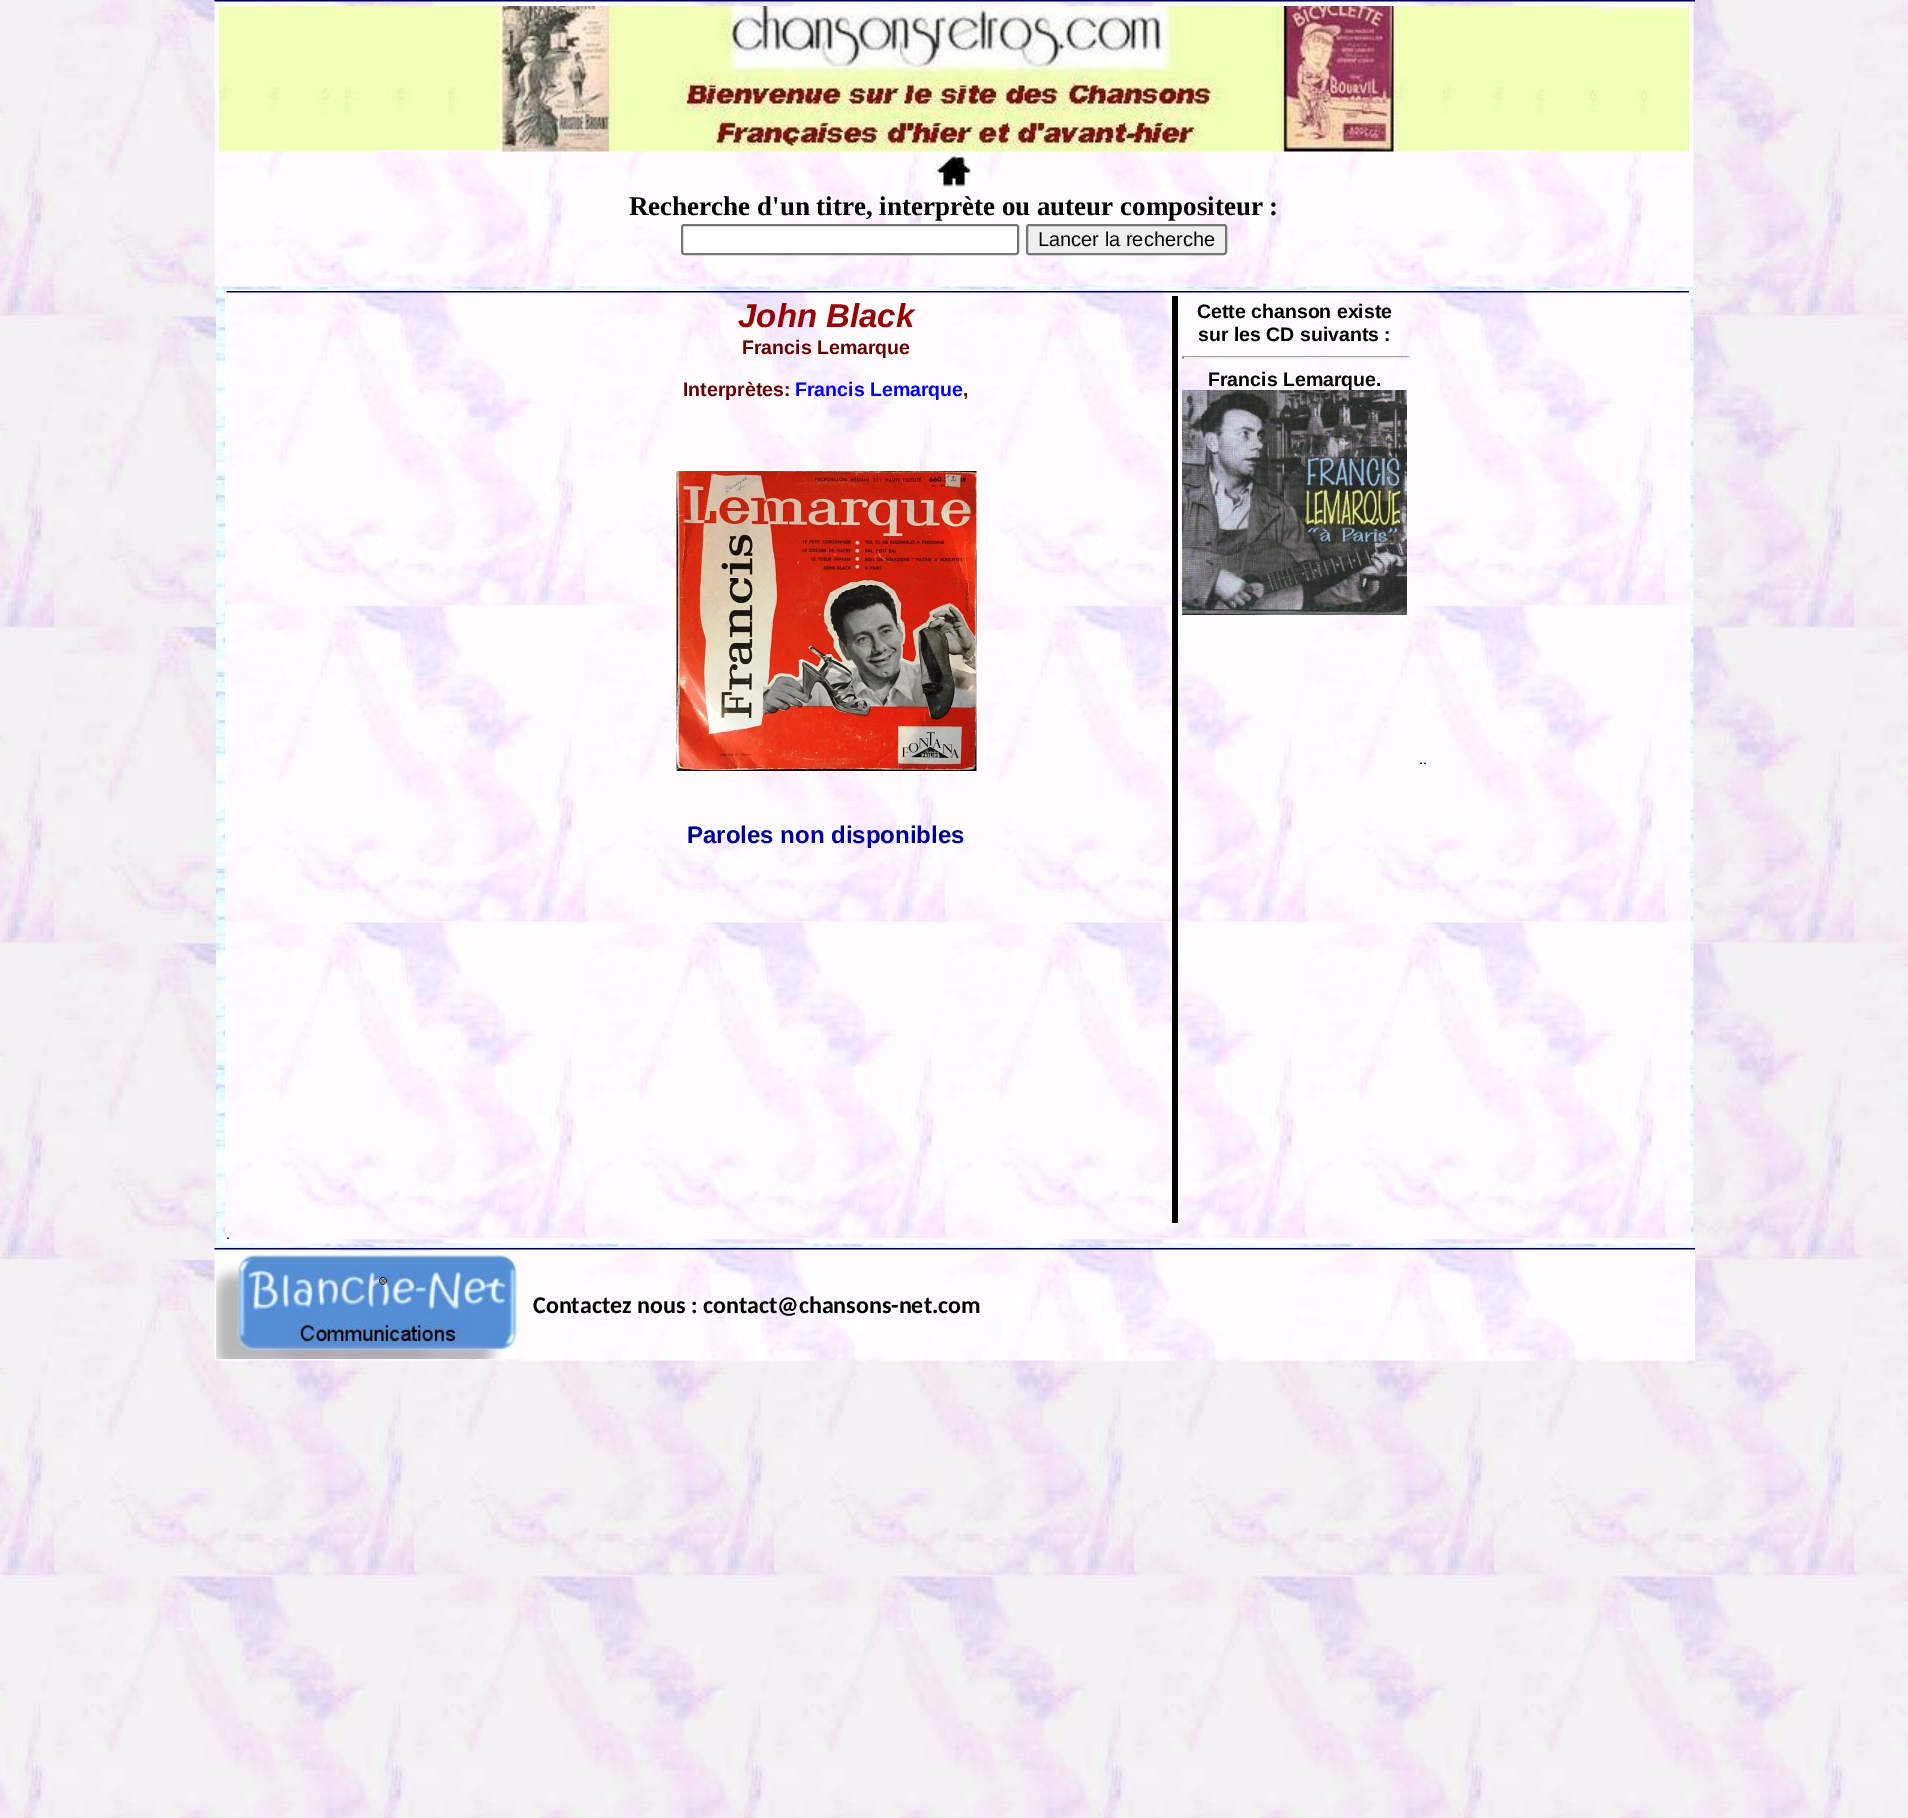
%!PS-Adobe-3.0
%%BoundingBox: 0 0 1908 1818
%%LanguageLevel: 3
%%Pages: 1
%%EndComments
%%BeginProlog
/setink { 3 { 255 div 3 1 roll } repeat setrgbcolor } def
/usefont { [ exch dup neg 0 0 3 -1 roll 0 0 ] selectfont } def
/drawtext { setink usefont moveto show } def
/fillbox { setink rectfill } def
/rrect { 5 dict begin { /r /h /w /y /x } { exch def } forall
  x r add y moveto x w add y 2 copy h add r arct x w add y h add x 1 index r arct
  x y h add x y r arct x y 2 copy exch w add exch r arct closepath end } def
/drawimage { 5 dict begin { /h /w /y /x /name } { exch def } forall
  gsave x y translate w h scale
  w h 8 [w 0 0 h 0 0] name (r) file false 3 colorimage grestore end } def
%%EndProlog
%%BeginSetup
<< /PageSize [1908 1818] >> setpagedevice
%%EndSetup
%%Page: 1 1
0 1818 translate 1 -1 scale
4 setmiterlimit
0 0 1908 1818 255 255 255 fillbox
(assets/img1.rgb) 0 0 1908 1818 drawimage
(assets/img3.rgb) 214 1 1480 286 drawimage
(assets/img2.rgb) 214 0 1481 2 drawimage
(assets/img4.rgb) 219 6 1470 146 drawimage
(assets/img5.rgb) 934 151 40 37 drawimage
(Recherche d'un titre, interprète ou auteur compositeur :) 629 215 /LiberationSerif-Bold 27 0 0 0 drawtext
255 255 255 setink
682 225 336 29 2 rrect gsave fill grestore
118 118 118 setink
2 setlinewidth
stroke
239 239 239 setink
1027 225 199 29 2 rrect gsave fill grestore
118 118 118 setink
stroke
(Lancer la recherche) 1038 246 /LiberationSans-Regular 20 0 0 0 drawtext
(assets/img6.rgb) 216 286 1478 961 drawimage
(assets/img7.rgb) 225 289 1466 955 drawimage
(assets/img8.rgb) 226 291 1463 2 drawimage
(John Black) 738 327 /LiberationSans-BoldItalic 33 153 0 0 drawtext
(Francis Lemarque) 742 354 /LiberationSans-Bold 19.5 102 0 0 drawtext
(Interprètes:) 683 396 /LiberationSans-Bold 19.5 102 0 0 drawtext
(Francis Lemarque) 795 396 /LiberationSans-Bold 19.5 0 0 255 drawtext
(,) 963 396 /LiberationSans-Bold 19.5 102 0 0 drawtext
(assets/img9.rgb) 676 471 301 300 drawimage
(Paroles non disponibles) 687 843 /LiberationSans-Bold 24 0 0 153 drawtext
1172 296 6 927 0 0 0 fillbox
(assets/img10.rgb) 1345 297 40 2 drawimage
(Cette chanson existe) 1197 318 /LiberationSans-Bold 19.5 0 0 0 drawtext
(sur les CD suivants :) 1198 341 /LiberationSans-Bold 19.5 0 0 0 drawtext
1182 356 228 1 159 159 159 fillbox
1409 356 2 3 238 238 238 fillbox
1182 357 228 2 238 238 238 fillbox
1182 356 2 3 159 159 159 fillbox
(Francis Lemarque.) 1208 386 /LiberationSans-Bold 19.5 0 0 0 drawtext
(assets/img11.rgb) 1182 390 225 225 drawimage
(..) 1419 764 /LiberationSans-Regular 15 0 0 0 drawtext
(.) 226 1239 /LiberationSans-Regular 15 0 0 0 drawtext
(assets/img13.rgb) 214 1249 1481 112 drawimage
(assets/img12.rgb) 214 1248 1481 2 drawimage
(assets/img14.rgb) 216 1251 302 108 drawimage
(Contactez nous : contact@chansons-net.com) 533 1313 /Carlito-Bold 24 0 0 0 drawtext
showpage
%%EOF
